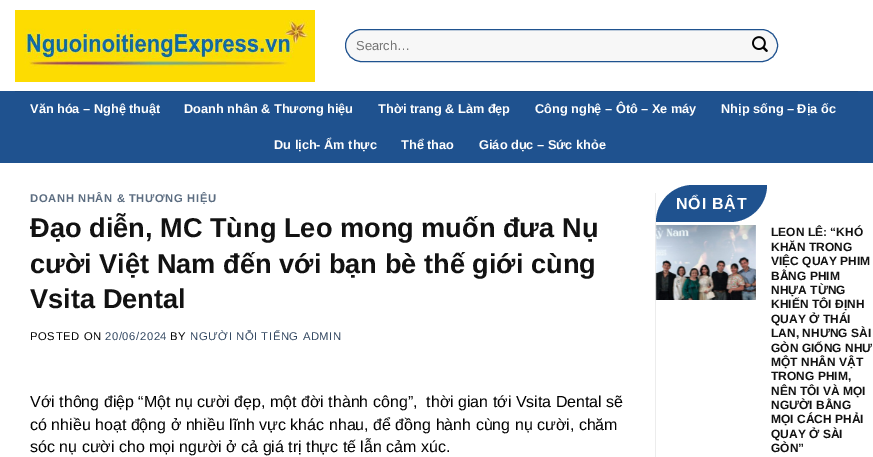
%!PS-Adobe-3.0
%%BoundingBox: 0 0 873 457
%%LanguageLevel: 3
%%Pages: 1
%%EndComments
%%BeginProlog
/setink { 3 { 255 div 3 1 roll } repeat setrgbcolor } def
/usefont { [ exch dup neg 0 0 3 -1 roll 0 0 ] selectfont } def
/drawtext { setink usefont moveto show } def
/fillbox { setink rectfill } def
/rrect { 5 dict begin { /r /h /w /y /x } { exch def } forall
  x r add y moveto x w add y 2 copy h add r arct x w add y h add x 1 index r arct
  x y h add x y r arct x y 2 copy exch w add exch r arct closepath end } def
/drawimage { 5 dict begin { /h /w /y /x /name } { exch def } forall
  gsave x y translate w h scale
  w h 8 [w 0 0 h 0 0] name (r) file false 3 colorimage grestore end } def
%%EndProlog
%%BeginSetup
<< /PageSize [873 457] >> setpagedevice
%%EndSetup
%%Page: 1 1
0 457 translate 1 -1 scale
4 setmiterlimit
0 0 873 457 255 255 255 fillbox
(assets/img1.rgb) 15 10 300 72 drawimage
247 247 247 setink
345.5 29.5 432 32 16 rrect gsave fill grestore
31 82 143 setink
stroke
(Search…) 356 50 /LiberationSans-Regular 13 117 117 117 drawtext
(assets/img2.rgb) 752 36 16 16 drawimage
0 91 873 72 31 82 143 fillbox
15 91 843 1 28 74 129 fillbox
(Văn hóa – Nghệ thuật) 30 113 /LiberationSans-Bold 12.75 255 255 255 drawtext
(Doanh nhân & Thương hiệu) 184 113 /LiberationSans-Bold 12.75 255 255 255 drawtext
(Thời trang & Làm đẹp) 378 113 /LiberationSans-Bold 12.75 255 255 255 drawtext
(Công nghệ – Ôtô – Xe máy) 535 113 /LiberationSans-Bold 12.75 255 255 255 drawtext
(Nhịp sống – Địa ốc) 721 113 /LiberationSans-Bold 12.75 255 255 255 drawtext
(Du lịch- Ẩm thực) 274 149 /LiberationSans-Bold 12.75 255 255 255 drawtext
(Thể thao) 401 149 /LiberationSans-Bold 12.75 255 255 255 drawtext
(Giáo dục – Sức khỏe) 479 149 /LiberationSans-Bold 12.75 255 255 255 drawtext
/LiberationSans-Bold 11.25 usefont
92 109 129 setink
30 202 moveto 0.6 0 (DOANH NHÂN & THƯƠNG HIỆU) ashow
(Đạo diễn, MC Tùng Leo mong muốn đưa Nụ) 30 237 /LiberationSans-Bold 27.2 18 18 18 drawtext
(cười Việt Nam đến với bạn bè thế giới cùng) 30 273 /LiberationSans-Bold 27.2 18 18 18 drawtext
(Vsita Dental) 30 308 /LiberationSans-Bold 27.2 18 18 18 drawtext
/LiberationSans-Regular 11.25 usefont
2 2 2 setink
30 340 moveto 0.6 0 (POSTED ON) ashow
51 72 98 setink
105 340 moveto 0.6 0 (20/06/2024) ashow
2 2 2 setink
170 340 moveto 0.6 0 (BY) ashow
51 72 98 setink
190 340 moveto 0.6 0 (NGƯỜI NỖI TIẾNG ADMIN) ashow
(Với thông điệp “Một nụ cười đẹp, một đời thành công”,  thời gian tới Vsita Dental sẽ) 30 407 /LiberationSans-Regular 16 2 2 2 drawtext
(có nhiều hoạt động ở nhiều lĩnh vực khác nhau, để đồng hành cùng nụ cười, chăm) 30 430 /LiberationSans-Regular 16 2 2 2 drawtext
(sóc nụ cười cho mọi người ở cả giá trị thực tế lẫn cảm xúc.) 30 452 /LiberationSans-Regular 16 2 2 2 drawtext
655 193 1 264 236 236 236 fillbox
31 82 143 setink
693 185 moveto 767 185 lineto 767 205.5 750.5 222 730 222 curveto 656 222 lineto 656 201.5 672.5 185 693 185 curveto closepath fill
/LiberationSans-Bold 16 usefont
255 255 255 setink
676 209 moveto 0.75 0 (NỔI BẬT) ashow
(assets/img3.rgb) 655 225 101 75 drawimage
(LEON LÊ: “KHÓ) 771 236 /LiberationSans-Bold 12 18 18 18 drawtext
(KHĂN TRONG) 771 251 /LiberationSans-Bold 12 18 18 18 drawtext
(VIỆC QUAY PHIM) 771 265 /LiberationSans-Bold 12 18 18 18 drawtext
(BẰNG PHIM) 771 280 /LiberationSans-Bold 12 18 18 18 drawtext
(NHỰA TỪNG) 771 294 /LiberationSans-Bold 12 18 18 18 drawtext
(KHIẾN TÔI ĐỊNH) 771 308 /LiberationSans-Bold 12 18 18 18 drawtext
(QUAY Ở THÁI) 771 323 /LiberationSans-Bold 12 18 18 18 drawtext
(LAN, NHƯNG SÀI) 771 337 /LiberationSans-Bold 12 18 18 18 drawtext
(GÒN GIỐNG NHƯ) 771 352 /LiberationSans-Bold 12 18 18 18 drawtext
(MỘT NHÂN VẬT) 771 366 /LiberationSans-Bold 12 18 18 18 drawtext
(TRONG PHIM,) 771 380 /LiberationSans-Bold 12 18 18 18 drawtext
(NÊN TÔI VÀ MỌI) 771 395 /LiberationSans-Bold 12 18 18 18 drawtext
(NGƯỜI BẰNG) 771 409 /LiberationSans-Bold 12 18 18 18 drawtext
(MỌI CÁCH PHẢI) 771 423 /LiberationSans-Bold 12 18 18 18 drawtext
(QUAY Ở SÀI) 771 438 /LiberationSans-Bold 12 18 18 18 drawtext
(GÒN”) 771 452 /LiberationSans-Bold 12 18 18 18 drawtext
showpage
%%EOF
